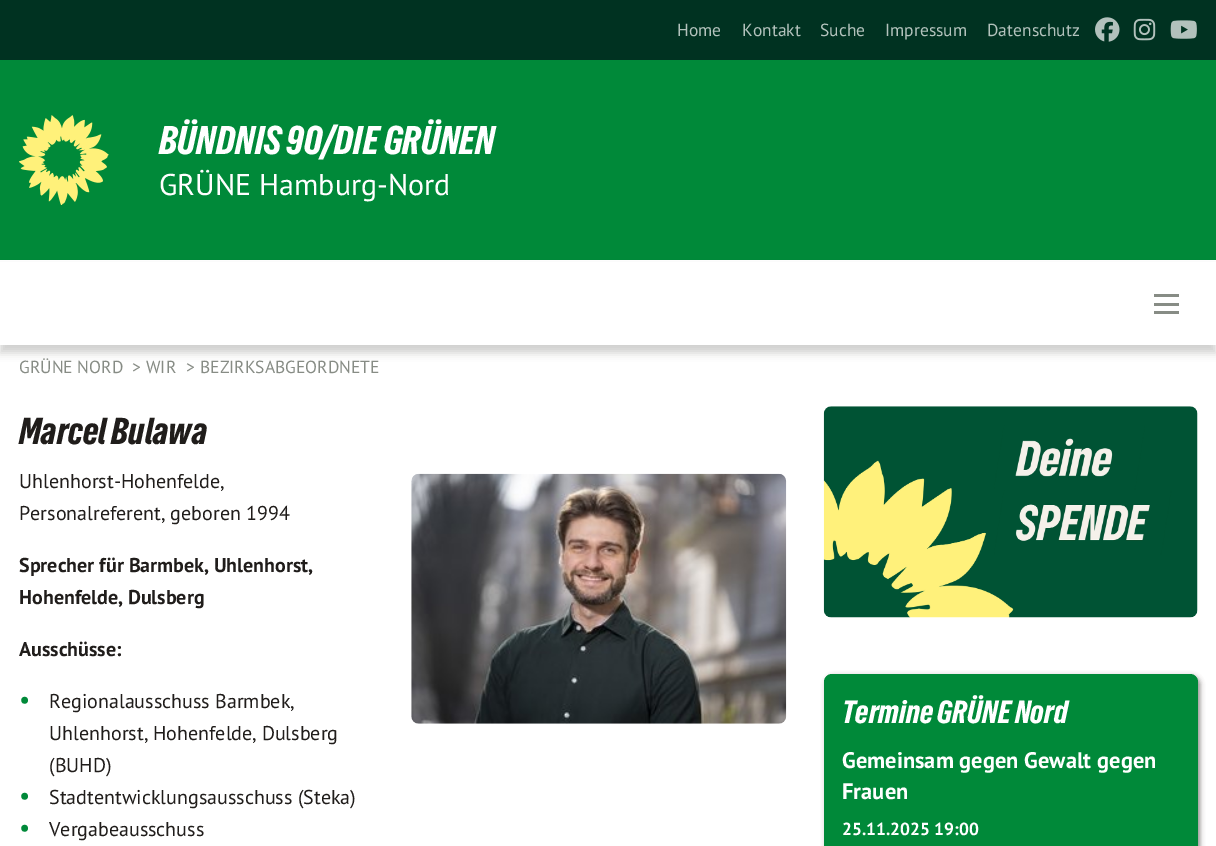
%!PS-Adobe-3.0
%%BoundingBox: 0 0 1216 846
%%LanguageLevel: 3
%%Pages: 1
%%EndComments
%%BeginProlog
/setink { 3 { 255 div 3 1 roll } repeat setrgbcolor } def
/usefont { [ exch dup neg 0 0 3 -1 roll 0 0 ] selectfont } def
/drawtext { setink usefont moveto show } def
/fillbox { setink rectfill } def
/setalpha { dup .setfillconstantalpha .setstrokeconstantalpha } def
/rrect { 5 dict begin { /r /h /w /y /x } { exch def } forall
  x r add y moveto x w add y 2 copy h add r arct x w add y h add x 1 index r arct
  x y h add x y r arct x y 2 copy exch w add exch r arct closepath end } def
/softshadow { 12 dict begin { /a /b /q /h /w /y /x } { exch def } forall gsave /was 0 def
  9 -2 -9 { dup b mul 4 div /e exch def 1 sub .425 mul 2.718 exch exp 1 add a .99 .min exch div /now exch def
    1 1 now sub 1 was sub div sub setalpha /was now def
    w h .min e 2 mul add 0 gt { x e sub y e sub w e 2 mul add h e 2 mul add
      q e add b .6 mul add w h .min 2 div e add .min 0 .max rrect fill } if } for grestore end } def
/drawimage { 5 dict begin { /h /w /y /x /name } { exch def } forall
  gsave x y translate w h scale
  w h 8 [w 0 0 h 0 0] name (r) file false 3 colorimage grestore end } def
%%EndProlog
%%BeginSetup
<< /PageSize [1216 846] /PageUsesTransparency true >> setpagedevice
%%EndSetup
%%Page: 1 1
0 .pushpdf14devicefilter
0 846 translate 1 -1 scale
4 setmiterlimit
0 0 1216 846 255 255 255 fillbox
0 0 1216 60 0 50 33 fillbox
(Home) 677 36 /PTSans-Regular 17.5 179 194 188 drawtext
(Kontakt) 742 36 /PTSans-Regular 17.5 179 194 188 drawtext
(Suche) 820 36 /PTSans-Regular 17.5 179 194 188 drawtext
(Impressum) 885 36 /PTSans-Regular 17.5 179 194 188 drawtext
(Datenschutz) 987 36 /PTSans-Regular 17.5 179 194 188 drawtext
(assets/img1.rgb) 1095 17 25 25 drawimage
(assets/img2.rgb) 1133 18 23 23 drawimage
(assets/img3.rgb) 1170 20 27 19 drawimage
0 60 1216 200 0 137 57 fillbox
(assets/img4.rgb) 19 115 90 90 drawimage
(BÜNDNIS 90/DIE GRÜNEN) 159 154 /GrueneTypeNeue-Regular 37.5 255 255 255 drawtext
(GRÜNE Hamburg‑Nord) 159 195 /PTSans-Regular 30 255 255 255 drawtext
32 29 27 setink
0 268 1216 85 0 4 0.2 softshadow
0 262 1216 83 255 255 255 fillbox
1154 311 25 3 135 140 133 fillbox
1154 303 25 3 135 140 133 fillbox
1154 294 25 3 135 140 133 fillbox
(GRÜNE NORD) 19 373 /PTSans-Regular 17.5 135 140 133 drawtext
(>) 132 373 /PTSans-Regular 17.5 135 140 133 drawtext
(WIR) 146 373 /PTSans-Regular 17.5 135 140 133 drawtext
(>) 186 373 /PTSans-Regular 17.5 135 140 133 drawtext
(BEZIRKSABGEORDNETE) 200 373 /PTSans-Regular 17.5 135 140 133 drawtext
(Marcel Bulawa) 19 444 /GrueneTypeNeue-Regular 35 32 29 27 drawtext
(Uhlenhorst-Hohenfelde,) 19 488 /PTSans-Regular 20 32 29 27 drawtext
(Personalreferent, geboren 1994) 19 520 /PTSans-Regular 20 32 29 27 drawtext
(Sprecher für Barmbek, Uhlenhorst,) 19 572 /PTSans-Bold 20 32 29 27 drawtext
(Hohenfelde, Dulsberg) 19 604 /PTSans-Bold 20 32 29 27 drawtext
(Ausschüsse:) 19 656 /PTSans-Bold 20 32 29 27 drawtext
(•) 19 708 /PTSans-Regular 25 0 137 57 drawtext
(Regionalausschuss Barmbek,) 49 708 /PTSans-Regular 20 32 29 27 drawtext
(Uhlenhorst, Hohenfelde, Dulsberg) 49 740 /PTSans-Regular 20 32 29 27 drawtext
(\(BUHD\)) 49 772 /PTSans-Regular 20 32 29 27 drawtext
(•) 19 804 /PTSans-Regular 25 0 137 57 drawtext
(Stadtentwicklungsausschuss \(Steka\)) 49 804 /PTSans-Regular 20 32 29 27 drawtext
(•) 19 836 /PTSans-Regular 25 0 137 57 drawtext
(Vergabeausschuss) 49 836 /PTSans-Regular 20 32 29 27 drawtext
(assets/img5.rgb) 411 473 376 251 drawimage
(assets/img6.rgb) 823 406 375 212 drawimage
826 676 374 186 8 2.5 0.5 softshadow
0 137 57 setink
824 674 374 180 8 rrect fill
(Termine GRÜNE Nord) 842 723 /GrueneTypeNeue-Regular 30 255 255 255 drawtext
(Gemeinsam gegen Gewalt gegen) 842 768 /PTSans-Bold 22.5 255 255 255 drawtext
(Frauen) 842 799 /PTSans-Bold 22.5 255 255 255 drawtext
(25.11.2025 19:00) 842 835 /PTSans-Bold 17.5 255 255 255 drawtext
.poppdf14devicefilter showpage
%%EOF
